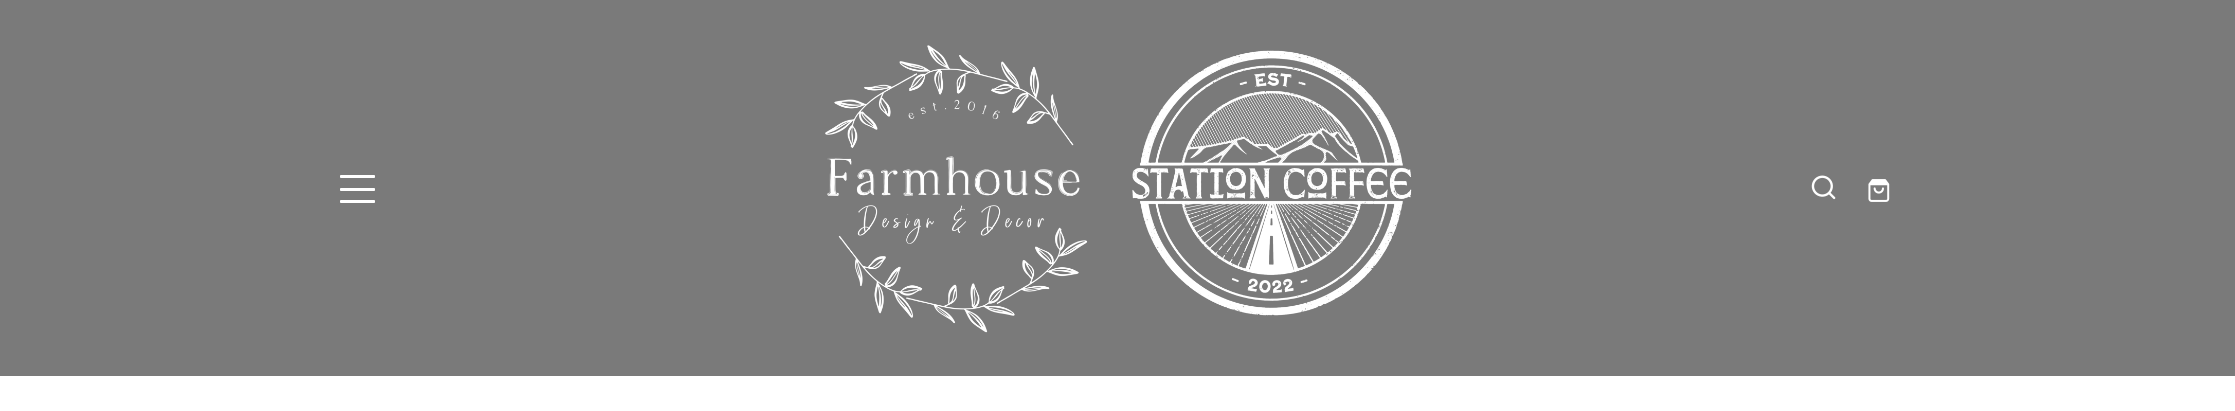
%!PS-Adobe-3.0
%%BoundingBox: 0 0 2235 411
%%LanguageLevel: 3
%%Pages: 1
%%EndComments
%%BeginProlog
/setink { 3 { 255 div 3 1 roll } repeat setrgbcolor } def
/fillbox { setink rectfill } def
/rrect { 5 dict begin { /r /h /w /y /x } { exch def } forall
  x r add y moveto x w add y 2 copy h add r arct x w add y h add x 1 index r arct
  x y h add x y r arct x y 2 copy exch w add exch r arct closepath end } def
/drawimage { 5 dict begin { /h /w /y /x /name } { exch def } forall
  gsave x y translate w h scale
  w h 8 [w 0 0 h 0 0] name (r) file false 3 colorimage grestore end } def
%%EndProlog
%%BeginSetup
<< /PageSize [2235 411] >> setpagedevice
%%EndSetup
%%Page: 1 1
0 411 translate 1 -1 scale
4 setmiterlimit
0 0 2235 411 255 255 255 fillbox
0 0 2235 376 122 122 122 fillbox
255 255 255 setink
340 188 35 3 1.5 rrect fill
340 175 35 3 1.5 rrect fill
340 200 35 3 1.5 rrect fill
(assets/img1.rgb) 825 45 587 288 drawimage
(assets/img2.rgb) 1811 175 25 25 drawimage
(assets/img3.rgb) 1868 179 22 23 drawimage
showpage
%%EOF
